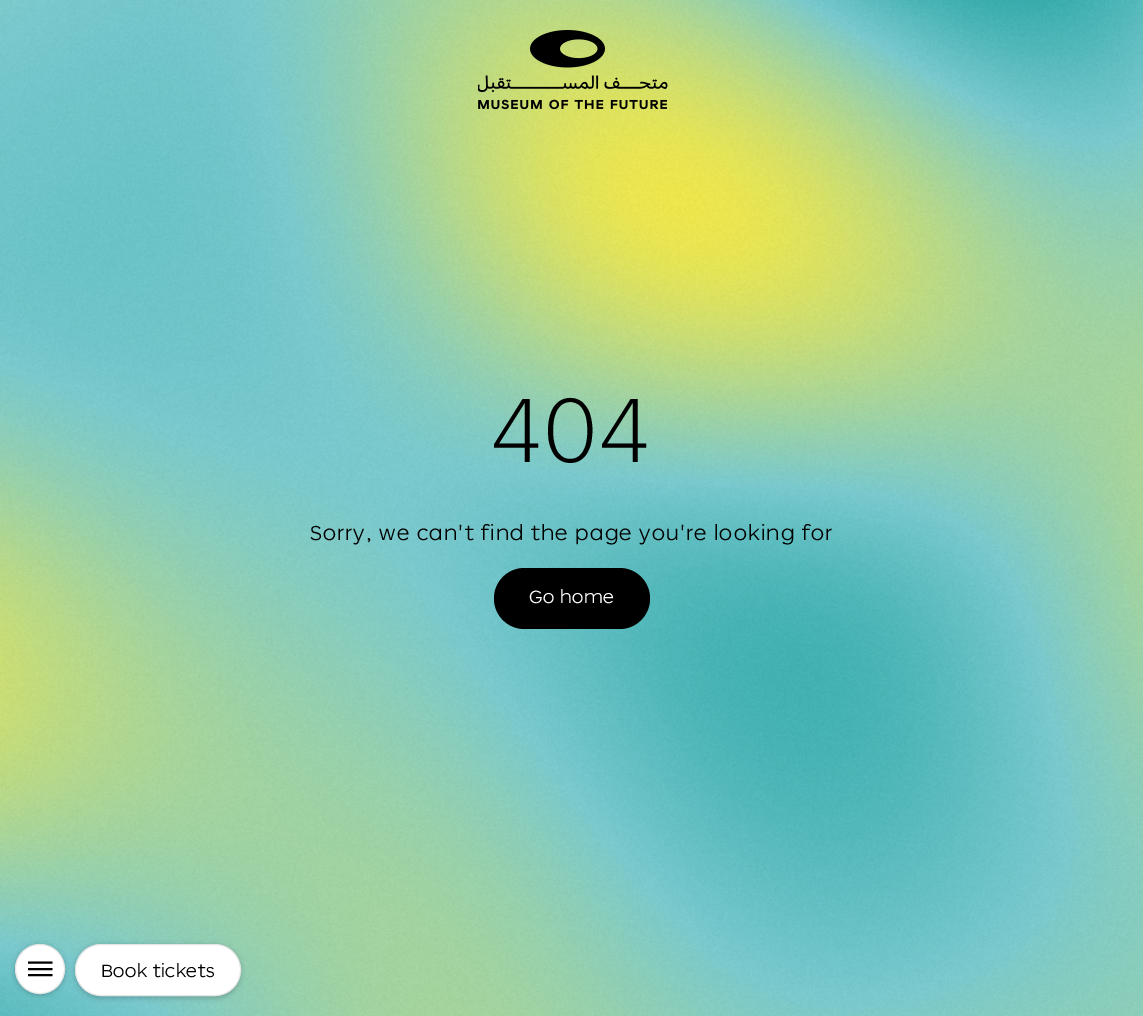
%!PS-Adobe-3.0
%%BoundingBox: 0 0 1143 1016
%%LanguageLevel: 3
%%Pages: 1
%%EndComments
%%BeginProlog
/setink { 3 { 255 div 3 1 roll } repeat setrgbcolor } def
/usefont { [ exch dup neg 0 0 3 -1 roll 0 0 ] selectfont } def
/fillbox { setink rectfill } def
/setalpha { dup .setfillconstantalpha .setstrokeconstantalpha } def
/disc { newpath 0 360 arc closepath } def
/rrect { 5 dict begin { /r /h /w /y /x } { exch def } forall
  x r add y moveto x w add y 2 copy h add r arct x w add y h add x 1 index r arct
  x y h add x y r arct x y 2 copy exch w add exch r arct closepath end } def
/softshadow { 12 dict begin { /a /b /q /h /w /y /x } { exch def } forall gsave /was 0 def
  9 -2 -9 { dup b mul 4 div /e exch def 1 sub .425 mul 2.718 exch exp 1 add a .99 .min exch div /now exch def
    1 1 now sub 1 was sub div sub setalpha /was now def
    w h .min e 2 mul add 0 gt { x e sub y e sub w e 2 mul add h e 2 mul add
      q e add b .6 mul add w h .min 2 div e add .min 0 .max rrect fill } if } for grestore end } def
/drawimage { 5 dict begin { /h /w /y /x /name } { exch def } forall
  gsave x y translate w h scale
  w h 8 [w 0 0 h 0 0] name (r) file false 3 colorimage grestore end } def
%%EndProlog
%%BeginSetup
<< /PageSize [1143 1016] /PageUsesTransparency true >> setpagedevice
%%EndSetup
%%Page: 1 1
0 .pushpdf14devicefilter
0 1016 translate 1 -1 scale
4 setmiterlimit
0 0 1143 1016 255 255 255 fillbox
(assets/img1.rgb) 0 0 1143 1016 drawimage
/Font-Regular 91 usefont
0 0 0 setink
492 462 moveto 3 0 (404) ashow
/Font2-Regular 20 usefont
310 540 moveto 1.25 0 (Sorry, we can't find the page you're looking for) ashow
494 568 156 61 30.5 rrect fill
/Font2-Regular 17.5 usefont
255 255 255 setink
529 603 moveto 0.5 0 (Go home) ashow
(assets/img2.rgb) 478 30 190 80 drawimage
0 0 0 setink
15 945 50 50 25 2.5 0.2 softshadow
255 255 255 setink
40 969 24.5 disc gsave fill grestore
230 230 230 setink
stroke
gsave
28 956 25 25 rectclip
0 0 0 setink
1.9 setlinewidth
27.5 962.5 moveto 52.5 962.5 lineto 27.5 969 moveto 52.5 969 lineto 27.5 975 moveto 52.5 975 lineto stroke
grestore
0 0 0 setink
75 945 166 53 26.5 2.5 0.2 softshadow
255 255 255 setink
75.5 944.5 165 51 25.5 rrect gsave fill grestore
230 230 230 setink
stroke
0 0 0 setink
101 977 moveto 0.5 0 (Book tickets) ashow
.poppdf14devicefilter showpage
%%EOF
